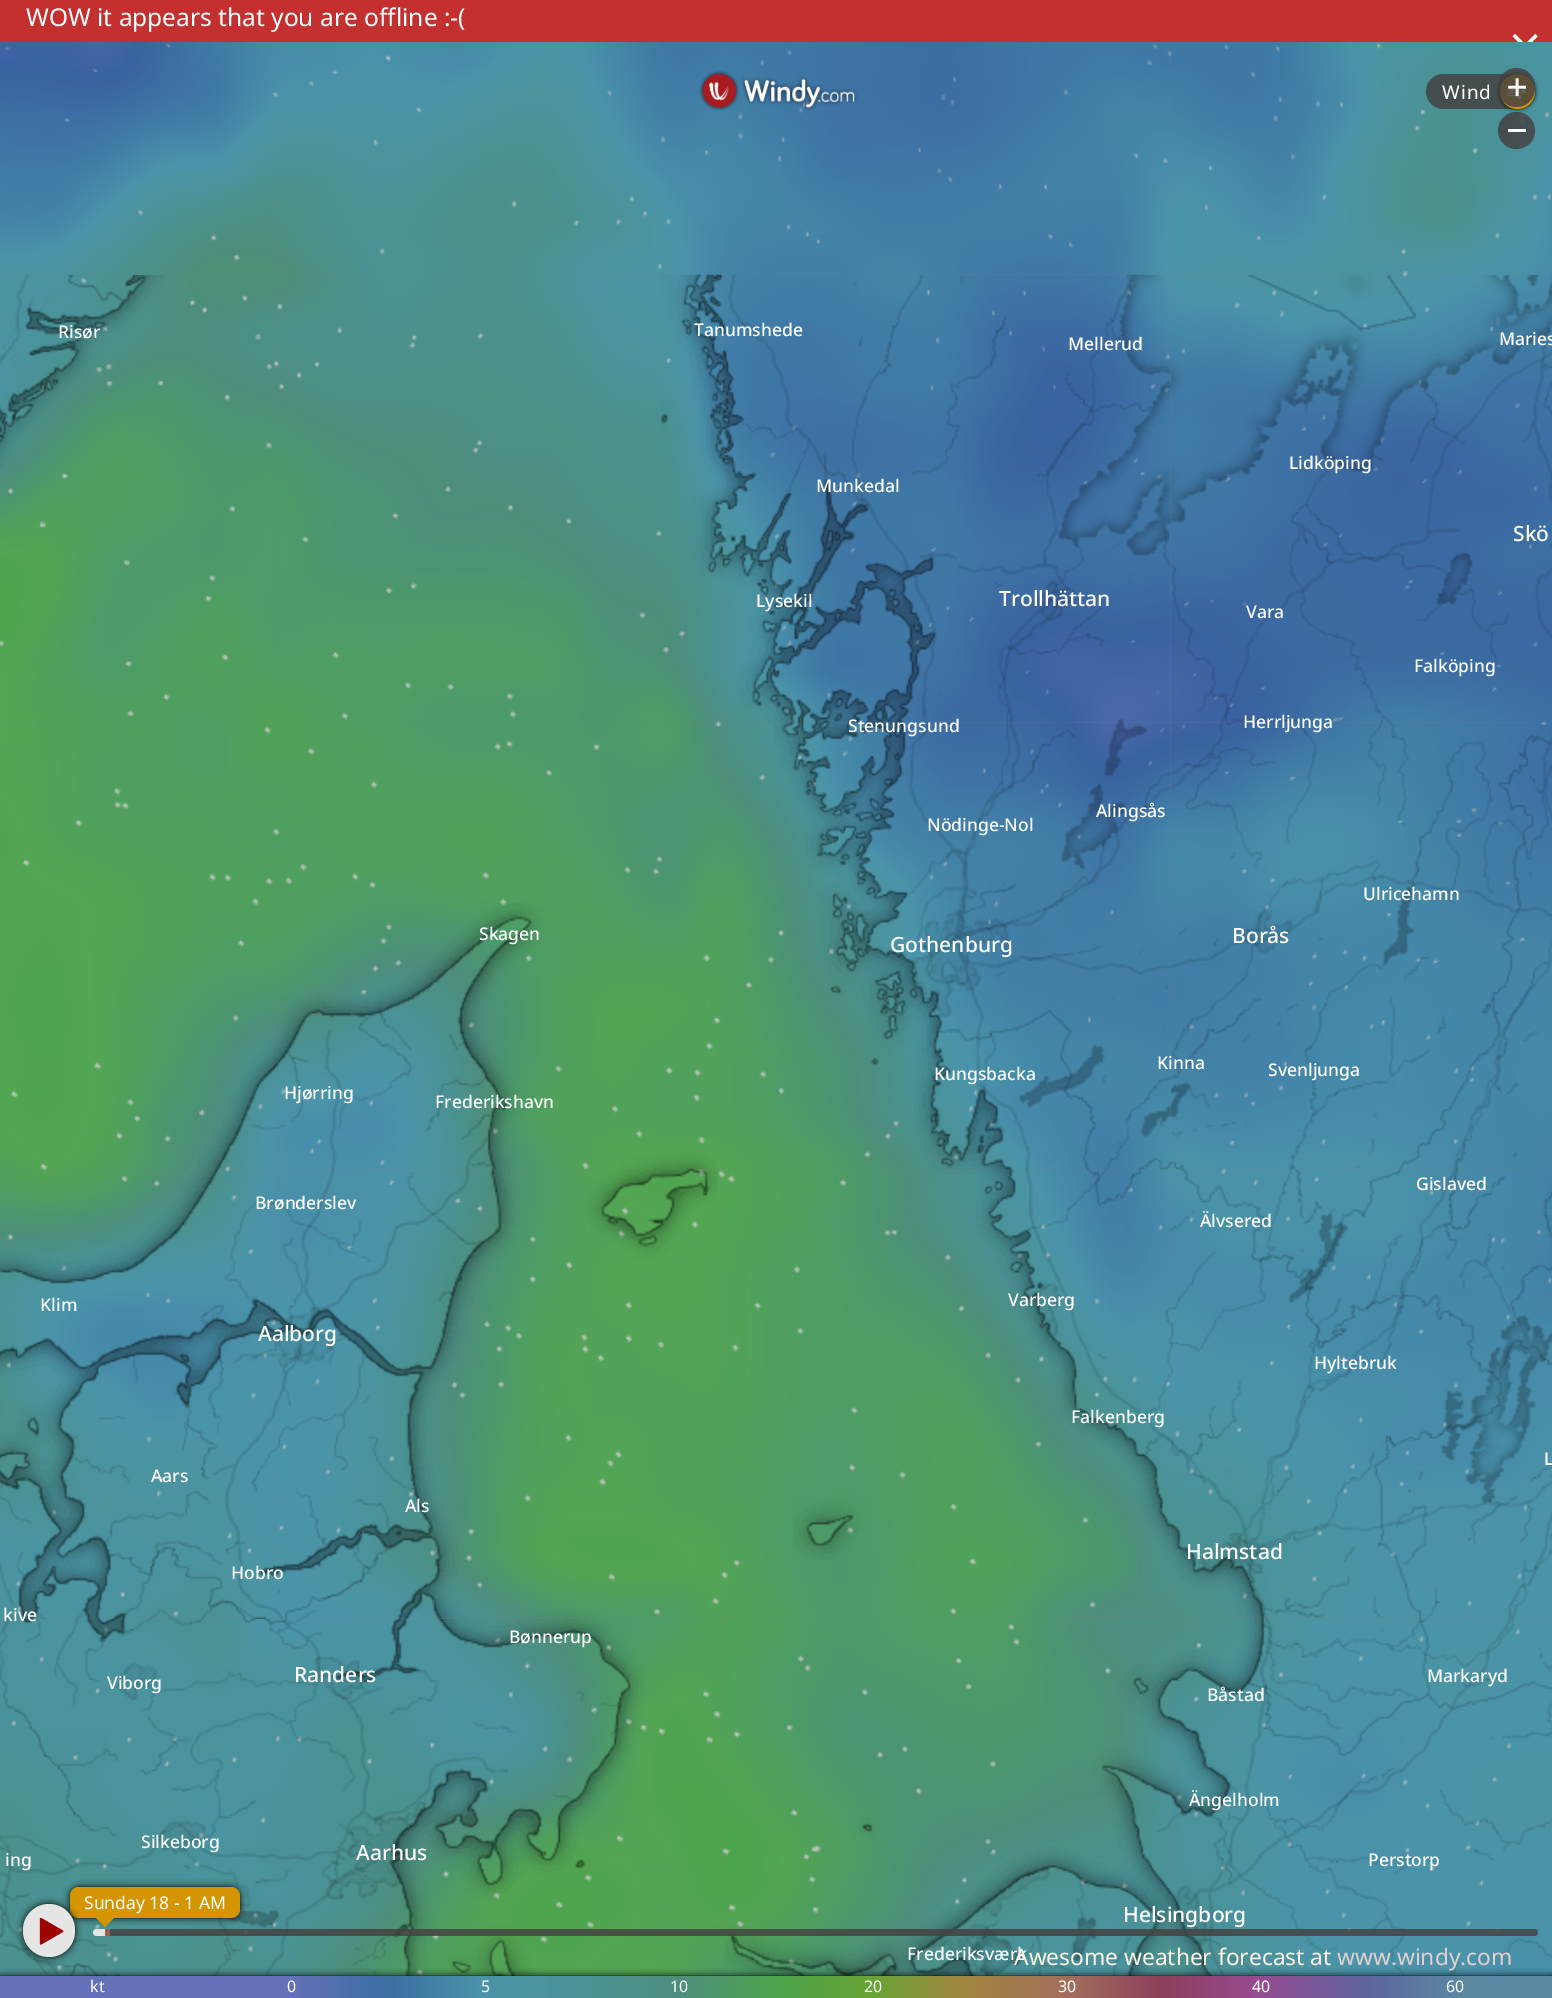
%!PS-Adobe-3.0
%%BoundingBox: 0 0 1552 1998
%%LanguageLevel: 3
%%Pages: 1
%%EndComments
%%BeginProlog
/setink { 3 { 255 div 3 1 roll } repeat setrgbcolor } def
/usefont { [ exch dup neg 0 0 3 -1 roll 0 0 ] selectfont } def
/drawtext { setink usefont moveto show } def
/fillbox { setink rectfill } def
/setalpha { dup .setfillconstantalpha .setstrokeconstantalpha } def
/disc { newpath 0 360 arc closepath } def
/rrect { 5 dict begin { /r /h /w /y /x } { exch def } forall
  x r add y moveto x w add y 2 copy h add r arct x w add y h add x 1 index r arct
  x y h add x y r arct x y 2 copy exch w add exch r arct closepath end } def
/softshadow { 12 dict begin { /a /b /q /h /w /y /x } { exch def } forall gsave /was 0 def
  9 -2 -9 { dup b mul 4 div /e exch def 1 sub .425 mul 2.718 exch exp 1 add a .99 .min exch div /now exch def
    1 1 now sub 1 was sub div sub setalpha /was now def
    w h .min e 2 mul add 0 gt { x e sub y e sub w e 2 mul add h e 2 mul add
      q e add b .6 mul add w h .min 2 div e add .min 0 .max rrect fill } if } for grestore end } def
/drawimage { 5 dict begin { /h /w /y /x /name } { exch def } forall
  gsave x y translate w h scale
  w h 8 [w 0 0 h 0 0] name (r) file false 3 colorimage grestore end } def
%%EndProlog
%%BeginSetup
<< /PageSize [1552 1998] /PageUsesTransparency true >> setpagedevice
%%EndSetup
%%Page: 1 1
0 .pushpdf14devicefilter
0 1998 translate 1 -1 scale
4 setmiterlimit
0 0 1552 1998 128 128 128 fillbox
0 0 1552 42 196 47 47 fillbox
(WOW it appears that you are offline :-\() 26 26 /NotoSans-Regular 24.5 255 255 255 drawtext
(assets/img1.rgb) 1512 33 26 9 drawimage
(assets/img15.rgb) 274 722 449 449 drawimage
(assets/img16.rgb) 722 722 449 449 drawimage
(assets/img11.rgb) 274 274 449 449 drawimage
(assets/img14.rgb) 0 722 275 449 drawimage
(assets/img10.rgb) 0 274 275 449 drawimage
(assets/img12.rgb) 722 274 449 449 drawimage
(assets/img7.rgb) 274 42 449 233 drawimage
(assets/img19.rgb) 274 1171 449 448 drawimage
(assets/img20.rgb) 722 1170 449 449 drawimage
(assets/img17.rgb) 1170 722 382 449 drawimage
(assets/img13.rgb) 1170 274 382 449 drawimage
(assets/img8.rgb) 722 42 449 233 drawimage
(assets/img6.rgb) 0 42 275 233 drawimage
(assets/img9.rgb) 1170 42 382 233 drawimage
(assets/img18.rgb) 0 1171 275 448 drawimage
(assets/img21.rgb) 1170 1171 382 448 drawimage
(assets/img23.rgb) 274 1619 449 357 drawimage
(assets/img22.rgb) 0 1619 275 357 drawimage
(assets/img24.rgb) 723 1619 448 357 drawimage
(assets/img25.rgb) 1171 1619 381 357 drawimage
(assets/img26.rgb) 0 43 1552 1933 drawimage
(assets/img2.rgb) 699 70 41 41 drawimage
(assets/img3.rgb) 741 76 117 35 drawimage
0.84 setalpha
68 65 65 setink
1426 74 109 35 17.5 rrect fill
/NotoSans-Regular 19 usefont
1 setalpha
255 255 255 setink
1442 99 moveto 1 0 (Wind) ashow
0 0 0 setink
1500 74 35 35 17.5 2 1 softshadow
212 149 0 setink
1517.5 91.5 17.5 disc fill
(assets/img4.rgb) 1507 88 19 12 drawimage
0.84 setalpha
68 65 65 setink
1498 68 37 39 18.5 rrect fill
1 setalpha
(assets/img5.rgb) 1508 78 19 19 drawimage
0.84 setalpha
1516.5 130.5 18.5 disc fill
1 setalpha
1508 129 18 3 255 255 255 fillbox
(assets/img27.rgb) 0 275 164 194 drawimage
(assets/img28.rgb) 660 274 63 303 drawimage
(assets/img33.rgb) 773 722 398 449 drawimage
(assets/img29.rgb) 722 274 449 449 drawimage
(assets/img30.rgb) 1171 275 381 448 drawimage
(assets/img32.rgb) 274 903 443 268 drawimage
(assets/img36.rgb) 274 1170 444 449 drawimage
(assets/img31.rgb) 197 1037 78 134 drawimage
(assets/img34.rgb) 1171 723 381 448 drawimage
(assets/img35.rgb) 0 1171 275 448 drawimage
(assets/img37.rgb) 794 1170 377 390 drawimage
(assets/img38.rgb) 1171 1171 381 448 drawimage
(assets/img39.rgb) 0 1619 275 357 drawimage
(assets/img40.rgb) 275 1619 369 357 drawimage
(assets/img41.rgb) 724 1662 447 314 drawimage
(assets/img42.rgb) 1171 1619 381 357 drawimage
(Risør) 58 338 /NotoSans-Medium 17.5 255 255 255 drawtext
(Tanumshede) 694 336 /NotoSans-Medium 17.5 255 255 255 drawtext
(Mellerud) 1068 350 /NotoSans-Medium 17.5 255 255 255 drawtext
(Munkedal) 816 492 /NotoSans-Medium 17.5 255 255 255 drawtext
(Lysekil) 756 607 /NotoSans-Medium 17.5 255 255 255 drawtext
(Trollhättan) 999 606 /NotoSans-Medium 21 255 255 255 drawtext
(Maries) 1499 345 /NotoSans-Medium 17.5 255 255 255 drawtext
(Lidköping) 1289 469 /NotoSans-Medium 17.5 255 255 255 drawtext
(Skö) 1513 541 /NotoSans-Medium 21 255 255 255 drawtext
(Vara) 1246 618 /NotoSans-Medium 17.5 255 255 255 drawtext
(Falköping) 1414 672 /NotoSans-Medium 17.5 255 255 255 drawtext
(Herrljunga) 1243 728 /NotoSans-Medium 17.5 255 255 255 drawtext
(Skagen) 479 940 /NotoSans-Medium 17.5 255 255 255 drawtext
(Hjørring) 284 1099 /NotoSans-Medium 17.5 255 255 255 drawtext
(Frederikshavn) 435 1108 /NotoSans-Medium 17.5 255 255 255 drawtext
(Stenungsund) 848 732 /NotoSans-Medium 17.5 255 255 255 drawtext
(Alingsås) 1096 817 /NotoSans-Medium 17.5 255 255 255 drawtext
(Nödinge-Nol) 927 831 /NotoSans-Medium 17.5 255 255 255 drawtext
(Gothenburg) 890 952 /NotoSans-Medium 21 255 255 255 drawtext
(Kungsbacka) 934 1080 /NotoSans-Medium 17.5 255 255 255 drawtext
(Ulricehamn) 1363 900 /NotoSans-Medium 17.5 255 255 255 drawtext
(Borås) 1232 943 /NotoSans-Medium 21 255 255 255 drawtext
(Kinna) 1157 1069 /NotoSans-Medium 17.5 255 255 255 drawtext
(Svenljunga) 1268 1076 /NotoSans-Medium 17.5 255 255 255 drawtext
(Klim) 40 1311 /NotoSans-Medium 17.5 255 255 255 drawtext
(Aars) 151 1482 /NotoSans-Medium 17.5 255 255 255 drawtext
(Hobro) 231 1579 /NotoSans-Medium 17.5 255 255 255 drawtext
(kive) 3 1621 /NotoSans-Medium 17.5 255 255 255 drawtext
(Brønderslev) 255 1209 /NotoSans-Medium 17.5 255 255 255 drawtext
(Aalborg) 258 1341 /NotoSans-Medium 21 255 255 255 drawtext
(Als) 405 1512 /NotoSans-Medium 17.5 255 255 255 drawtext
(Varberg) 1008 1306 /NotoSans-Medium 17.5 255 255 255 drawtext
(Falkenberg) 1071 1423 /NotoSans-Medium 17.5 255 255 255 drawtext
(Gislaved) 1416 1190 /NotoSans-Medium 17.5 255 255 255 drawtext
(Älvsered) 1200 1227 /NotoSans-Medium 17.5 255 255 255 drawtext
(Hyltebruk) 1314 1369 /NotoSans-Medium 17.5 255 255 255 drawtext
(L) 1544 1465 /NotoSans-Medium 17.5 255 255 255 drawtext
(Halmstad) 1186 1559 /NotoSans-Medium 21 255 255 255 drawtext
(Viborg) 107 1689 /NotoSans-Medium 17.5 255 255 255 drawtext
(Silkeborg) 141 1848 /NotoSans-Medium 17.5 255 255 255 drawtext
(ing) 5 1866 /NotoSans-Medium 17.5 255 255 255 drawtext
(Bønnerup) 509 1643 /NotoSans-Medium 17.5 255 255 255 drawtext
(Randers) 294 1682 /NotoSans-Medium 21 255 255 255 drawtext
(Aarhus) 356 1860 /NotoSans-Medium 21 255 255 255 drawtext
(Markaryd) 1427 1682 /NotoSans-Medium 17.5 255 255 255 drawtext
(Båstad) 1207 1701 /NotoSans-Medium 17.5 255 255 255 drawtext
(Ängelholm) 1189 1806 /NotoSans-Medium 17.5 255 255 255 drawtext
(Perstorp) 1368 1866 /NotoSans-Medium 17.5 255 255 255 drawtext
(Helsingborg) 1123 1922 /NotoSans-Medium 21 255 255 255 drawtext
(Frederiksværk) 907 1960 /NotoSans-Medium 17.5 255 255 255 drawtext
0 0 0 setink
70 1887 170 31 9 3.5 1 softshadow
212 149 0 setink
70 1887 170 31 9 rrect fill
0 0 0 setink
23 1904 52 53 26 3.5 1 softshadow
229 229 229 setink
23 1904 52 53 26 rrect fill
(assets/img43.rgb) 39 1917 25 28 drawimage
(Sunday 18 - 1 AM) 84 1909 /NotoSans-Regular 17.5 255 255 255 drawtext
212 149 0 setink
96 1918 moveto 114 1918 lineto 105 1927 lineto closepath fill
0.84 setalpha
68 65 65 setink
93 1929 1445 7 3.5 rrect fill
1 setalpha
229 229 229 setink
96.5 1929 moveto 105 1929 lineto 105 1936 lineto 96.5 1936 lineto 94.5 1936 93 1934.5 93 1932.5 curveto 93 1930.5 94.5 1929 96.5 1929 curveto closepath fill
105 1929 5 7 148 96 81 fillbox
0 0 0 setink
0 1976 1552 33 0 3.5 1 softshadow
(Awesome weather forecast at) 1014 1965 /NotoSans-Regular 22.75 255 243 225 drawtext
(www.windy.com) 1337 1965 /NotoSans-Regular 22.75 230 206 206 drawtext
gsave 0 1976 moveto 1552 1976 lineto 1552 1998 lineto 0 1998 lineto closepath clip newpath
<< /ShadingType 2 /ColorSpace /DeviceRGB /Coords [0 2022 1552 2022] /Extend [true true] /Function << /FunctionType 3 /Domain [0 1] /Functions [<< /FunctionType 2 /Domain [0 1] /C0 [0.384 0.443 0.722] /C1 [0.384 0.443 0.722] /N 1 >> << /FunctionType 2 /Domain [0 1] /C0 [0.384 0.443 0.722] /C1 [0.239 0.431 0.639] /N 1 >> << /FunctionType 2 /Domain [0 1] /C0 [0.239 0.431 0.639] /C1 [0.29 0.58 0.667] /N 1 >> << /FunctionType 2 /Domain [0 1] /C0 [0.29 0.58 0.667] /C1 [0.29 0.573 0.58] /N 1 >> << /FunctionType 2 /Domain [0 1] /C0 [0.29 0.573 0.58] /C1 [0.302 0.557 0.486] /N 1 >> << /FunctionType 2 /Domain [0 1] /C0 [0.302 0.557 0.486] /C1 [0.298 0.643 0.298] /N 1 >> << /FunctionType 2 /Domain [0 1] /C0 [0.298 0.643 0.298] /C1 [0.404 0.643 0.212] /N 1 >> << /FunctionType 2 /Domain [0 1] /C0 [0.404 0.643 0.212] /C1 [0.635 0.529 0.251] /N 1 >> << /FunctionType 2 /Domain [0 1] /C0 [0.635 0.529 0.251] /C1 [0.635 0.427 0.361] /N 1 >> << /FunctionType 2 /Domain [0 1] /C0 [0.635 0.427 0.361] /C1 [0.553 0.247 0.361] /N 1 >> << /FunctionType 2 /Domain [0 1] /C0 [0.553 0.247 0.361] /C1 [0.592 0.294 0.569] /N 1 >> << /FunctionType 2 /Domain [0 1] /C0 [0.592 0.294 0.569] /C1 [0.373 0.392 0.627] /N 1 >> << /FunctionType 2 /Domain [0 1] /C0 [0.373 0.392 0.627] /C1 [0.357 0.533 0.631] /N 1 >> << /FunctionType 2 /Domain [0 1] /C0 [0.357 0.533 0.631] /C1 [0.357 0.533 0.631] /N 1 >>] /Bounds [0.19 0.25 0.31 0.38 0.44 0.5 0.56 0.62 0.69 0.75 0.81 0.88 0.94] /Encode [0 1 0 1 0 1 0 1 0 1 0 1 0 1 0 1 0 1 0 1 0 1 0 1 0 1 0 1] >> >> shfill grestore
(kt) 90 1992 /NotoSans-Regular 16 255 255 255 drawtext
(0) 287 1992 /NotoSans-Regular 16 255 255 255 drawtext
(5) 481 1992 /NotoSans-Regular 16 255 255 255 drawtext
(10) 670 1992 /NotoSans-Regular 16 255 255 255 drawtext
(20) 864 1992 /NotoSans-Regular 16 255 255 255 drawtext
(30) 1058 1992 /NotoSans-Regular 16 255 255 255 drawtext
(40) 1252 1992 /NotoSans-Regular 16 255 255 255 drawtext
(60) 1446 1992 /NotoSans-Regular 16 255 255 255 drawtext
.poppdf14devicefilter showpage
%%EOF
